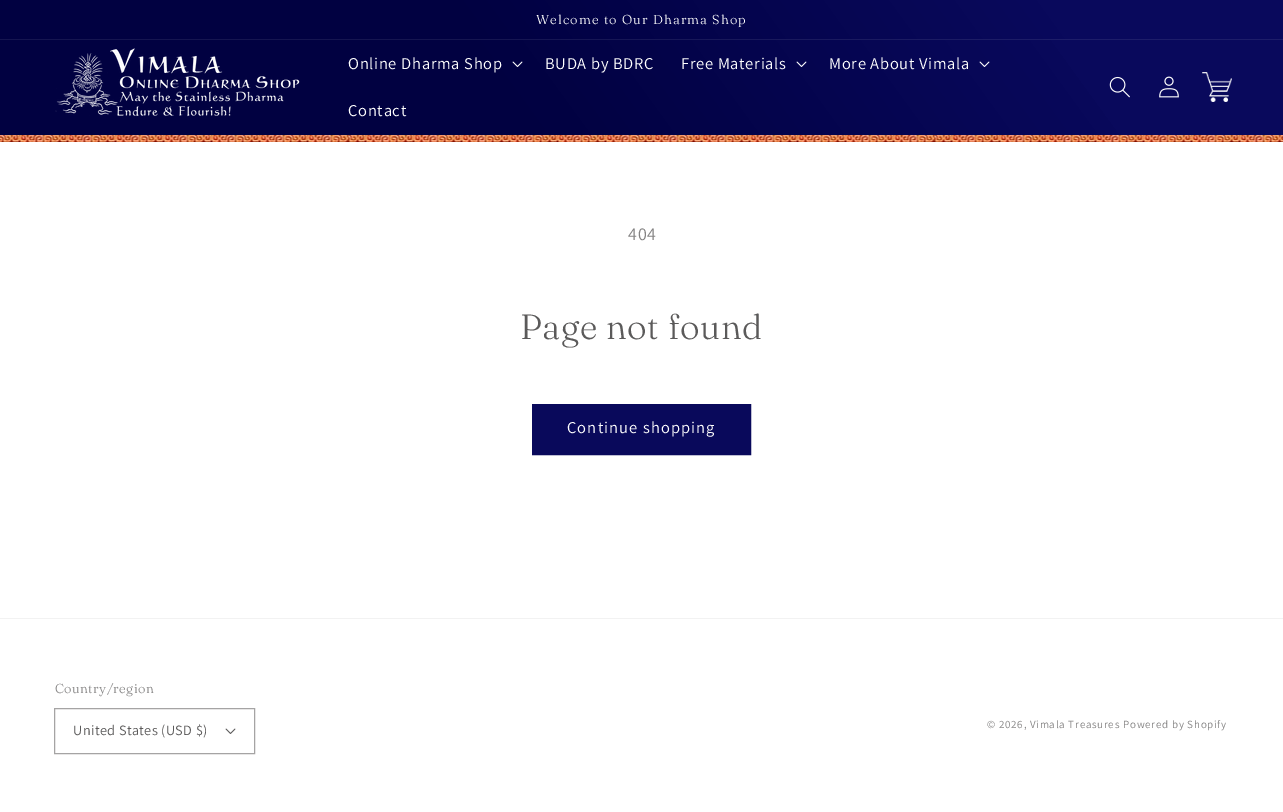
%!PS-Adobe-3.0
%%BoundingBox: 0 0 1283 812
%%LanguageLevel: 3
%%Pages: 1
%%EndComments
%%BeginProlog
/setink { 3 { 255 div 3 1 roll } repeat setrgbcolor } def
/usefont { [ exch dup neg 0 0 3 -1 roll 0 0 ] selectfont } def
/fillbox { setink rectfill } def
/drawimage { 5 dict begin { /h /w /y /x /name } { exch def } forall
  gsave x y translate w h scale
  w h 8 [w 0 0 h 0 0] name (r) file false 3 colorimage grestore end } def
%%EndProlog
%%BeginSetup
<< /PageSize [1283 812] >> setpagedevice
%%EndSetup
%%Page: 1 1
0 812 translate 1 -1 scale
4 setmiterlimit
0 0 1283 812 255 255 255 fillbox
gsave 0 0 moveto 1283 0 lineto 1283 39 lineto 0 39 lineto closepath clip newpath
<< /ShadingType 2 /ColorSpace /DeviceRGB /Coords [29 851 1254 -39] /Extend [true true] /Function << /FunctionType 3 /Domain [0 1] /Functions [<< /FunctionType 2 /Domain [0 1] /C0 [0.004 0.004 0.255] /C1 [0.004 0.004 0.255] /N 1 >> << /FunctionType 2 /Domain [0 1] /C0 [0.004 0.004 0.255] /C1 [0.035 0.035 0.361] /N 1 >> << /FunctionType 2 /Domain [0 1] /C0 [0.035 0.035 0.361] /C1 [0.035 0.035 0.361] /N 1 >>] /Bounds [0.55 0.87] /Encode [0 1 0 1 0 1] >> >> shfill grestore
gsave 0 39 moveto 1283 39 lineto 1283 40 lineto 0 40 lineto closepath clip newpath
<< /ShadingType 2 /ColorSpace /DeviceRGB /Coords [29 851 1254 -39] /Extend [true true] /Function << /FunctionType 3 /Domain [0 1] /Functions [<< /FunctionType 2 /Domain [0 1] /C0 [0.082 0.082 0.314] /C1 [0.082 0.082 0.314] /N 1 >> << /FunctionType 2 /Domain [0 1] /C0 [0.082 0.082 0.314] /C1 [0.114 0.114 0.412] /N 1 >> << /FunctionType 2 /Domain [0 1] /C0 [0.114 0.114 0.412] /C1 [0.114 0.114 0.412] /N 1 >>] /Bounds [0.55 0.87] /Encode [0 1 0 1 0 1] >> >> shfill grestore
/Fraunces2-Light 13 usefont
536 24 moveto 1.1 0 (Welcome to Our Dharma Shop) ashow
gsave 0 40 moveto 1283 40 lineto 1283 135 lineto 0 135 lineto closepath clip newpath
<< /ShadingType 2 /ColorSpace /DeviceRGB /Coords [29 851 1254 -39] /Extend [true true] /Function << /FunctionType 3 /Domain [0 1] /Functions [<< /FunctionType 2 /Domain [0 1] /C0 [0.004 0.004 0.255] /C1 [0.004 0.004 0.255] /N 1 >> << /FunctionType 2 /Domain [0 1] /C0 [0.004 0.004 0.255] /C1 [0.035 0.035 0.361] /N 1 >> << /FunctionType 2 /Domain [0 1] /C0 [0.035 0.035 0.361] /C1 [0.035 0.035 0.361] /N 1 >>] /Bounds [0.55 0.87] /Encode [0 1 0 1 0 1] >> >> shfill grestore
(assets/img1.rgb) 0 135 1283 7 drawimage
(assets/img2.rgb) 55 48 245 69 drawimage
/Assistant-Regular 16.5 usefont
348 69 moveto 0.7 0 (Online Dharma Shop) ashow
(assets/img3.rgb) 512 61 11 6 drawimage
545 69 moveto 0.7 0 (BUDA by BDRC) ashow
681 69 moveto 0.7 0 (Free Materials) ashow
(assets/img4.rgb) 796 61 11 6 drawimage
829 69 moveto 0.7 0 (More About Vimala) ashow
(assets/img5.rgb) 979 61 11 6 drawimage
348 116 moveto 0.7 0 (Contact) ashow
(assets/img6.rgb) 1109 76 21 22 drawimage
(assets/img7.rgb) 1159 76 20 22 drawimage
(assets/img8.rgb) 1202 72 30 30 drawimage
/Assistant-Regular 18 usefont
132 131 131 setink
628 240 moveto 0.7 0 (404) ashow
/Fraunces-Light 35 usefont
91 90 90 setink
520 339 moveto 0.6 0 (Page not found) ashow
9 9 91 setink
532.5 404.5 218 50 rectstroke
533 405 217 49 9 9 91 fillbox
/Assistant-Regular 16.5 usefont
255 255 255 setink
567 433 moveto 1.1 0 (Continue shopping) ashow
0 618 1283 1 242 242 242 fillbox
/Fraunces2-Light 13 usefont
132 131 131 setink
55 693 moveto 0.4 0 (Country/region) ashow
165 164 164 setink
54.5 708.5 200 45 rectstroke
/Assistant-Regular 14.25 usefont
91 90 90 setink
73 735 moveto 0.4 0 (United States \(USD $\)) ashow
(assets/img9.rgb) 225 728 11 6 drawimage
/Assistant-Regular 11 usefont
132 131 131 setink
987 728 moveto 0.75 0 (© 2026, Vimala Treasures) ashow
1123 728 moveto 0.75 0 (Powered by Shopify) ashow
showpage
%%EOF
